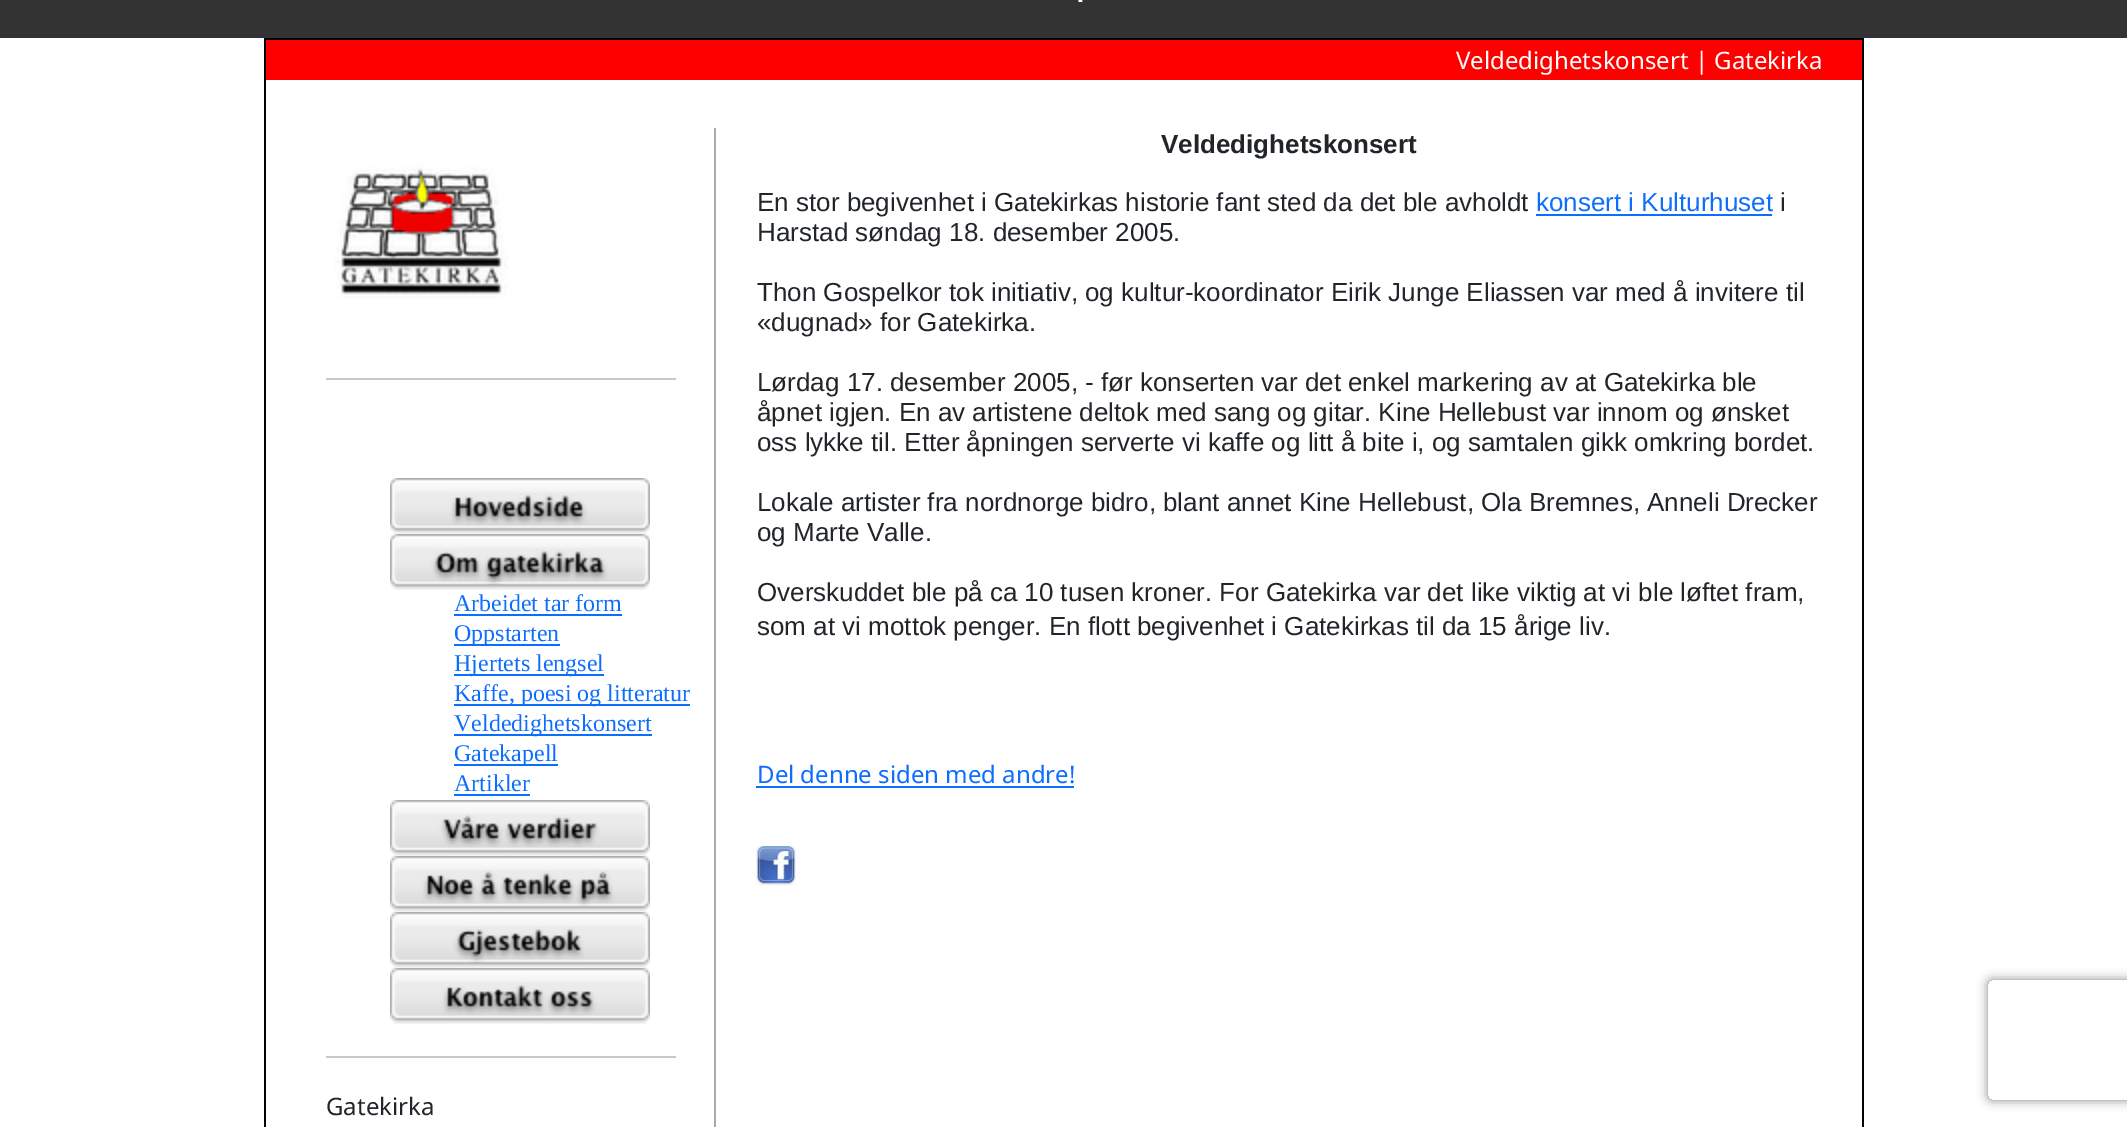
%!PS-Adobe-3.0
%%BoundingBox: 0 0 2127 1127
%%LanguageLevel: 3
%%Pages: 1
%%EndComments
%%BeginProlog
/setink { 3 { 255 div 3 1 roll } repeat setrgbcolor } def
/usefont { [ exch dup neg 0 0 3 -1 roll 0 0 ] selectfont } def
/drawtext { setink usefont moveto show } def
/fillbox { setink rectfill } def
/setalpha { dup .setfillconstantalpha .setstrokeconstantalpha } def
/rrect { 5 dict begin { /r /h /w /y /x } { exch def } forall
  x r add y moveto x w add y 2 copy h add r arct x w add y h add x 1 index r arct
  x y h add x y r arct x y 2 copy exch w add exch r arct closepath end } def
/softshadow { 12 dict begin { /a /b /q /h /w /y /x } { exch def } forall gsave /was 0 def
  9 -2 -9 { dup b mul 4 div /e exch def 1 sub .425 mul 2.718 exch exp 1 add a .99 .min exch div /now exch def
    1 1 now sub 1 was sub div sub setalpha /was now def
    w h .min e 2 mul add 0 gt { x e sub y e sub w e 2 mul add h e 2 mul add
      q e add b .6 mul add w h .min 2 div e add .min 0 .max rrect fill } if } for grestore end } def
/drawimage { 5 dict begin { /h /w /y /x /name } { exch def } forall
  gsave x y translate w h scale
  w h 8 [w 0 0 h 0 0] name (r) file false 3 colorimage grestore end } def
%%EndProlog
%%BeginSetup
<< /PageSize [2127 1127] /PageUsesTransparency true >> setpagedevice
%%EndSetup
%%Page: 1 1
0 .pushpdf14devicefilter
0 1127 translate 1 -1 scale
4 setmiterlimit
0 0 2127 1127 255 255 255 fillbox
264 38 1600 2 0 0 0 fillbox
1862 38 2 1089 0 0 0 fillbox
264 38 2 1089 0 0 0 fillbox
266 40 1596 40 255 0 0 fillbox
(Veldedighetskonsert | Gatekirka) 1456 69 /NotoSans-Regular 24 255 255 255 drawtext
0 0 2127 38 51 51 51 fillbox
(assets/img1.rgb) 1078 0 5 2 drawimage
(Veldedighetskonsert) 1161 153 /LiberationSans-Bold 26 33 37 41 drawtext
(En stor begivenhet i Gatekirkas historie fant sted da det ble avholdt) 757 211 /LiberationSans-Regular 26 33 37 41 drawtext
(konsert i Kulturhuset) 1536 211 /LiberationSans-Regular 26 13 110 253 drawtext
1536 214 236 2 13 110 253 fillbox
(i) 1780 211 /LiberationSans-Regular 26 33 37 41 drawtext
(Harstad søndag 18. desember 2005.) 757 241 /LiberationSans-Regular 26 33 37 41 drawtext
(Thon Gospelkor tok initiativ, og kultur-koordinator Eirik Junge Eliassen var med å invitere til) 757 301 /LiberationSans-Regular 26 33 37 41 drawtext
(«dugnad» for Gatekirka.) 757 331 /LiberationSans-Regular 26 33 37 41 drawtext
(Lørdag 17. desember 2005, - før konserten var det enkel markering av at Gatekirka ble) 757 391 /LiberationSans-Regular 26 33 37 41 drawtext
(åpnet igjen. En av artistene deltok med sang og gitar. Kine Hellebust var innom og ønsket) 757 421 /LiberationSans-Regular 26 33 37 41 drawtext
(oss lykke til. Etter åpningen serverte vi kaffe og litt å bite i, og samtalen gikk omkring bordet.) 757 451 /LiberationSans-Regular 26 33 37 41 drawtext
(Lokale artister fra nordnorge bidro, blant annet Kine Hellebust, Ola Bremnes, Anneli Drecker) 757 511 /LiberationSans-Regular 26 33 37 41 drawtext
(og Marte Valle.) 757 541 /LiberationSans-Regular 26 33 37 41 drawtext
(Overskuddet ble på ca 10 tusen kroner. For Gatekirka var det like viktig at vi ble løftet fram,) 757 601 /LiberationSans-Regular 26 33 37 41 drawtext
(som at vi mottok penger. En flott begivenhet i Gatekirkas til da 15 årige liv.) 757 635 /LiberationSans-Regular 26 33 37 41 drawtext
(Del denne siden med andre!) 757 783 /NotoSans-Regular 24 13 110 253 drawtext
756 786 318 2 13 110 253 fillbox
(assets/img2.rgb) 756 846 40 40 drawimage
714 128 2 999 170 170 170 fillbox
(assets/img3.rgb) 334 164 175 135 drawimage
326 378 350 2 200 201 202 fillbox
(assets/img4.rgb) 390 478 260 56 drawimage
(assets/img5.rgb) 390 534 260 56 drawimage
(Arbeidet tar form) 454 611 /LiberationSerif-Regular 24 13 110 253 drawtext
454 614 168 2 13 110 253 fillbox
454 644 106 2 13 110 253 fillbox
(Oppstarten) 454 641 /LiberationSerif-Regular 24 13 110 253 drawtext
454 674 150 2 13 110 253 fillbox
(Hjertets lengsel) 454 671 /LiberationSerif-Regular 24 13 110 253 drawtext
454 704 236 2 13 110 253 fillbox
(Kaffe, poesi og litteratur) 454 701 /LiberationSerif-Regular 24 13 110 253 drawtext
454 734 198 2 13 110 253 fillbox
(Veldedighetskonsert) 454 731 /LiberationSerif-Regular 24 13 110 253 drawtext
454 764 104 2 13 110 253 fillbox
(Gatekapell) 454 761 /LiberationSerif-Regular 24 13 110 253 drawtext
(Artikler) 454 791 /LiberationSerif-Regular 24 13 110 253 drawtext
454 794 76 2 13 110 253 fillbox
(assets/img6.rgb) 390 800 260 56 drawimage
(assets/img7.rgb) 390 856 260 56 drawimage
(assets/img8.rgb) 390 912 260 56 drawimage
(assets/img9.rgb) 390 968 260 56 drawimage
326 1056 350 2 200 201 202 fillbox
(Gatekirka) 326 1115 /NotoSans-Regular 24 33 37 41 drawtext
gsave
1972 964 moveto 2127 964 lineto 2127 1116 lineto 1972 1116 lineto closepath 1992 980 moveto 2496 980 lineto 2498 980 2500 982 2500 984 curveto 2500 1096 lineto 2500 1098 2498 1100 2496 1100 curveto 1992 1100 lineto 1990 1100 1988 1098 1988 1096 curveto 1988 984 lineto 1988 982 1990 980 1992 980 curveto closepath eoclip newpath
128 128 128 setink
1988 980 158 120 4 5 1 softshadow
grestore
.poppdf14devicefilter showpage
%%EOF
